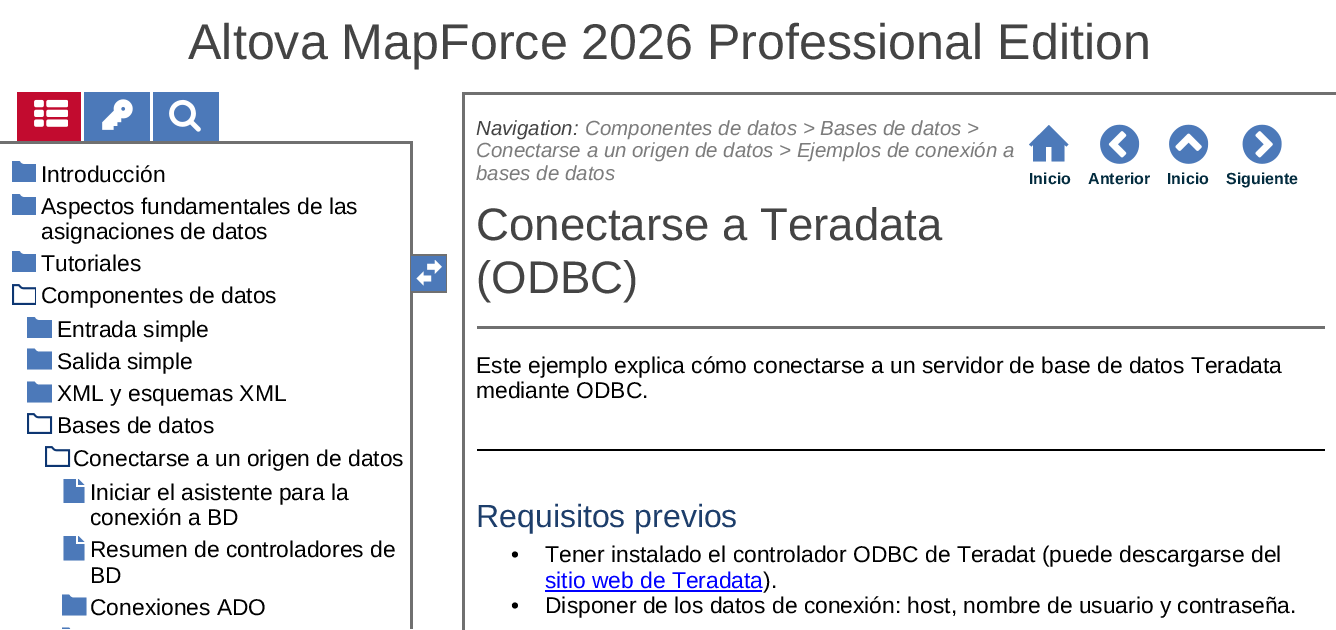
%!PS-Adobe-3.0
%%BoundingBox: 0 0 1336 630
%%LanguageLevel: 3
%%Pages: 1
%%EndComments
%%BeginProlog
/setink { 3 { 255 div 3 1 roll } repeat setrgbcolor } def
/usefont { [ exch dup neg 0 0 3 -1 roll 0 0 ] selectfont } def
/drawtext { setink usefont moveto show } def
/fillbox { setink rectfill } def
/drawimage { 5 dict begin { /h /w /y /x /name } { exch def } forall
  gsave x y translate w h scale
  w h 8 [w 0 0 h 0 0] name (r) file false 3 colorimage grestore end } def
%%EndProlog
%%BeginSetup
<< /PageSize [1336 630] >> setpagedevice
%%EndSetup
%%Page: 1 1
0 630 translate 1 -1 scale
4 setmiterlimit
0 0 1336 630 255 255 255 fillbox
(Altova MapForce 2026 Professional Edition) 188 59 /LiberationSans-Regular 50.2 68 68 68 drawtext
17 92 64 49 194 11 47 fillbox
84 92 66 49 76 121 185 fillbox
153 92 66 49 76 121 185 fillbox
(assets/img1.rgb) 34 99 34 28 drawimage
(assets/img2.rgb) 102 99 31 31 drawimage
(assets/img3.rgb) 169 99 32 33 drawimage
0 141 413 3 112 112 112 fillbox
410 141 3 488 112 112 112 fillbox
gsave
12 159 24 26 rectclip
76 121 185 setink
23.5 164 moveto 22 164 21 163 19.5 161 curveto 12 161 lineto 12 182 lineto 37 182 lineto 37 164 lineto closepath fill
grestore
(Introducción) 41 182 /LiberationSans-Regular 22.8 0 0 0 drawtext
gsave
12 192 24 26 rectclip
76 121 185 setink
23.5 197 moveto 22 197 21 196 19.5 194 curveto 12 194 lineto 12 215 lineto 37 215 lineto 37 197 lineto closepath fill
grestore
(Aspectos fundamentales de las) 41 214 /LiberationSans-Regular 22.8 0 0 0 drawtext
(asignaciones de datos) 41 239 /LiberationSans-Regular 22.8 0 0 0 drawtext
gsave
12 249 24 26 rectclip
76 121 185 setink
23.5 254 moveto 22 254 21 253 19.5 251 curveto 12 251 lineto 12 272 lineto 37 272 lineto 37 254 lineto closepath fill
grestore
(Tutoriales) 41 271 /LiberationSans-Regular 22.8 0 0 0 drawtext
(assets/img4.rgb) 12 284 24 21 drawimage
(Componentes de datos) 41 303 /LiberationSans-Regular 22.8 0 0 0 drawtext
76 121 185 setink
38.5 320 moveto 37 320 36 319 34.5 317 curveto 27 317 lineto 27 338 lineto 52 338 lineto 52 320 lineto closepath 38.5 351.5 moveto 37 351.5 36 350.5 34.5 348.5 curveto 27 348.5 lineto 27 369.5 lineto 52 369.5 lineto 52 351.5 lineto closepath fill
(Entrada simple) 57 337 /LiberationSans-Regular 22.8 0 0 0 drawtext
(Salida simple) 57 369 /LiberationSans-Regular 22.8 0 0 0 drawtext
76 121 185 setink
38.5 384.5 moveto 37 384.5 36 383.5 34.5 381.5 curveto 27 381.5 lineto 27 402.5 lineto 52 402.5 lineto 52 384.5 lineto closepath fill
(XML y esquemas XML) 57 401 /LiberationSans-Regular 22.8 0 0 0 drawtext
(assets/img5.rgb) 27 413 26 21 drawimage
(Bases de datos) 57 433 /LiberationSans-Regular 22.8 0 0 0 drawtext
(assets/img5.rgb) 45 446 26 21 drawimage
(Conectarse a un origen de datos) 73 466 /LiberationSans-Regular 22.8 0 0 0 drawtext
gsave
62 479 25 24 rectclip
76 121 185 setink
84.5 485 moveto 78 485 lineto 78 478.5 lineto closepath 76 487 moveto 76 478.5 lineto 63.5 478.5 lineto 63.5 503.5 lineto 84.5 503.5 lineto 84.5 487 lineto closepath fill
grestore
(Iniciar el asistente para la) 90 500 /LiberationSans-Regular 22.8 0 0 0 drawtext
(conexión a BD) 90 525 /LiberationSans-Regular 22.8 0 0 0 drawtext
gsave
62 536 25 25 rectclip
76 121 185 setink
84.5 542 moveto 78 542 lineto 78 535.5 lineto closepath 76 544 moveto 76 535.5 lineto 63.5 535.5 lineto 63.5 560.5 lineto 84.5 560.5 lineto 84.5 544 lineto closepath fill
grestore
(Resumen de controladores de) 90 557 /LiberationSans-Regular 22.8 0 0 0 drawtext
(BD) 90 583 /LiberationSans-Regular 22.8 0 0 0 drawtext
gsave
62 593 25 25 rectclip
76 121 185 setink
73 597.5 moveto 71.5 597.5 70.5 596.5 69 594.5 curveto 61.5 594.5 lineto 61.5 615.5 lineto 86.5 615.5 lineto 86.5 597.5 lineto closepath fill
grestore
(Conexiones ADO) 90 615 /LiberationSans-Regular 22.8 0 0 0 drawtext
gsave
62 626 25 3 rectclip
76 121 185 setink
73 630.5 moveto 71.5 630.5 70.5 629.5 69 627.5 curveto 61.5 627.5 lineto 61.5 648.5 lineto 86.5 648.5 lineto 86.5 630.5 lineto closepath fill
grestore
411 256 35 35 76 121 185 fillbox
411 254 36 2 112 112 112 fillbox
446 254 1 39 112 112 112 fillbox
411 291 36 2 112 112 112 fillbox
(assets/img6.rgb) 416 260 26 26 drawimage
462 92 874 3 112 112 112 fillbox
462 92 3 538 112 112 112 fillbox
(Navigation:) 476 135 /LiberationSans-Italic 20.5 68 68 68 drawtext
(Componentes de datos > Bases de datos >) 585 135 /LiberationSans-Italic 20.5 124 124 124 drawtext
(Conectarse a un origen de datos > Ejemplos de conexión a) 476 157 /LiberationSans-Italic 20.5 124 124 124 drawtext
(bases de datos) 476 180 /LiberationSans-Italic 20.5 124 124 124 drawtext
76 121 185 setink
1049 125 moveto 1029 144.5 lineto 1031.5 146.5 lineto 1033 145 lineto 1033 161.5 lineto 1046 161.5 lineto 1046 147 lineto 1051.5 147 lineto 1051.5 161.5 lineto 1064.5 161.5 lineto 1064.5 145 lineto 1066.5 146.5 lineto 1068.5 144.5 lineto 1050 126 lineto closepath fill
(Inicio) 1029 184 /LiberationSans-Bold 16 2 43 62 drawtext
(assets/img7.rgb) 1100 124 40 40 drawimage
(Anterior) 1088 184 /LiberationSans-Bold 16 2 43 62 drawtext
(assets/img8.rgb) 1169 124 40 40 drawimage
(Inicio) 1167 184 /LiberationSans-Bold 16 2 43 62 drawtext
(assets/img9.rgb) 1242 124 40 40 drawimage
(Siguiente) 1226 184 /LiberationSans-Bold 16 2 43 62 drawtext
(Conectarse a Teradata) 476 240 /LiberationSans-Regular 45.6 68 68 68 drawtext
(\(ODBC\)) 476 293 /LiberationSans-Regular 45.6 68 68 68 drawtext
477 326 848 3 112 112 112 fillbox
(Este ejemplo explica cómo conectarse a un servidor de base de datos Teradata) 476 373 /LiberationSans-Regular 22.8 0 0 0 drawtext
(mediante ODBC.) 476 398 /LiberationSans-Regular 22.8 0 0 0 drawtext
477 449 848 2 0 0 0 fillbox
(Requisitos previos) 476 527 /LiberationSans-Regular 32 29 62 107 drawtext
(•) 511 562 /LiberationSans-Regular 22.8 0 0 0 drawtext
(Tener instalado el controlador ODBC de Teradat \(puede descargarse del) 545 562 /LiberationSans-Regular 22.8 0 0 0 drawtext
(sitio web de Teradata) 545 588 /LiberationSans-Regular 22.8 0 0 255 drawtext
(\).) 763 588 /LiberationSans-Regular 22.8 0 0 0 drawtext
545 590 217 2 0 0 255 fillbox
(•) 511 613 /LiberationSans-Regular 22.8 0 0 0 drawtext
(Disponer de los datos de conexión: host, nombre de usuario y contraseña.) 545 613 /LiberationSans-Regular 22.8 0 0 0 drawtext
showpage
%%EOF
